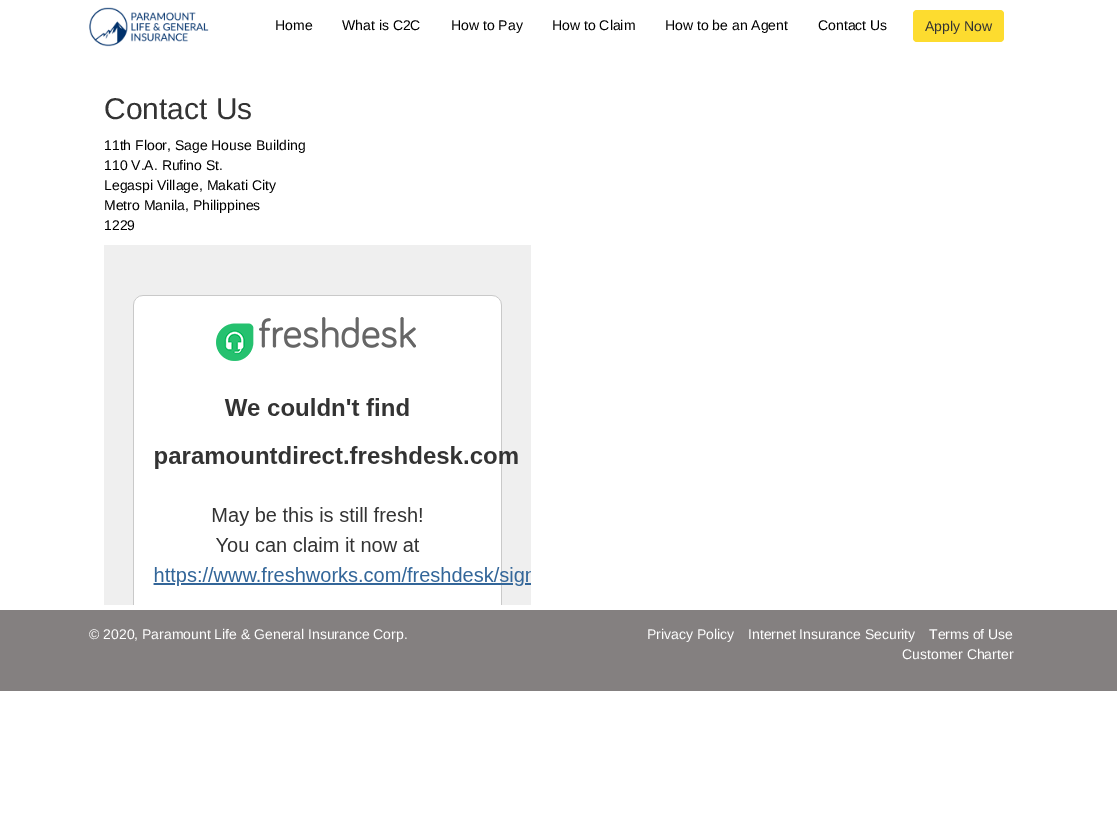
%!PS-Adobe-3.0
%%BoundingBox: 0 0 1117 834
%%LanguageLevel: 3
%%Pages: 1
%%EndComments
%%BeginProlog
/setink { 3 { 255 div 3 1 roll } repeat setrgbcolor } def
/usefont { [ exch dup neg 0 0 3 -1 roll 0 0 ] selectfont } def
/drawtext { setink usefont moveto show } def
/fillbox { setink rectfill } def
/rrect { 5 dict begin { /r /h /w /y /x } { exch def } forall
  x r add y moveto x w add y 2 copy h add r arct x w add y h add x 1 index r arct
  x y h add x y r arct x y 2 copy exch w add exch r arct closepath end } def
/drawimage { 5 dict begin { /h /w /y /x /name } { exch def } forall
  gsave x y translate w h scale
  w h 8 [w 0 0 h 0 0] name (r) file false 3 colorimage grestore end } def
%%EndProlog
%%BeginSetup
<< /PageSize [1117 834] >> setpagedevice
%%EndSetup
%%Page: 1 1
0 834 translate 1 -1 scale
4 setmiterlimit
0 0 1117 834 255 255 255 fillbox
(assets/img1.rgb) 89 7 120 40 drawimage
(Home) 275 30 /LiberationSans-Regular 14 0 0 0 drawtext
(What is C2C) 342 30 /LiberationSans-Regular 14 0 0 0 drawtext
(How to Pay) 451 30 /LiberationSans-Regular 14 0 0 0 drawtext
(How to Claim) 552 30 /LiberationSans-Regular 14 0 0 0 drawtext
(How to be an Agent) 665 30 /LiberationSans-Regular 14 0 0 0 drawtext
(Contact Us) 818 30 /LiberationSans-Regular 14 0 0 0 drawtext
253 220 47 setink
913 10 91 32 4 rrect fill
(Apply Now) 925 31 /LiberationSans-Regular 14 51 51 51 drawtext
(Contact Us) 104 119 /LiberationSans-Regular 30 51 51 51 drawtext
(11th Floor, Sage House Building) 104 150 /LiberationSans-Regular 14 0 0 0 drawtext
(110 V.A. Rufino St.) 104 170 /LiberationSans-Regular 14 0 0 0 drawtext
(Legaspi Village, Makati City) 104 190 /LiberationSans-Regular 14 0 0 0 drawtext
(Metro Manila, Philippines) 104 210 /LiberationSans-Regular 14 0 0 0 drawtext
(1229) 104 230 /LiberationSans-Regular 14 0 0 0 drawtext
(assets/img2.rgb) 104 245 427 360 drawimage
0 610 1117 81 132 128 128 fillbox
(© 2020, Paramount Life & General Insurance Corp.) 89 639 /LiberationSans-Regular 14 255 255 255 drawtext
(Privacy Policy) 647 639 /LiberationSans-Regular 14 255 255 255 drawtext
(Internet Insurance Security) 748 639 /LiberationSans-Regular 14 255 255 255 drawtext
(Terms of Use) 929 639 /LiberationSans-Regular 14 255 255 255 drawtext
(Customer Charter) 902 659 /LiberationSans-Regular 14 255 255 255 drawtext
showpage
%%EOF
